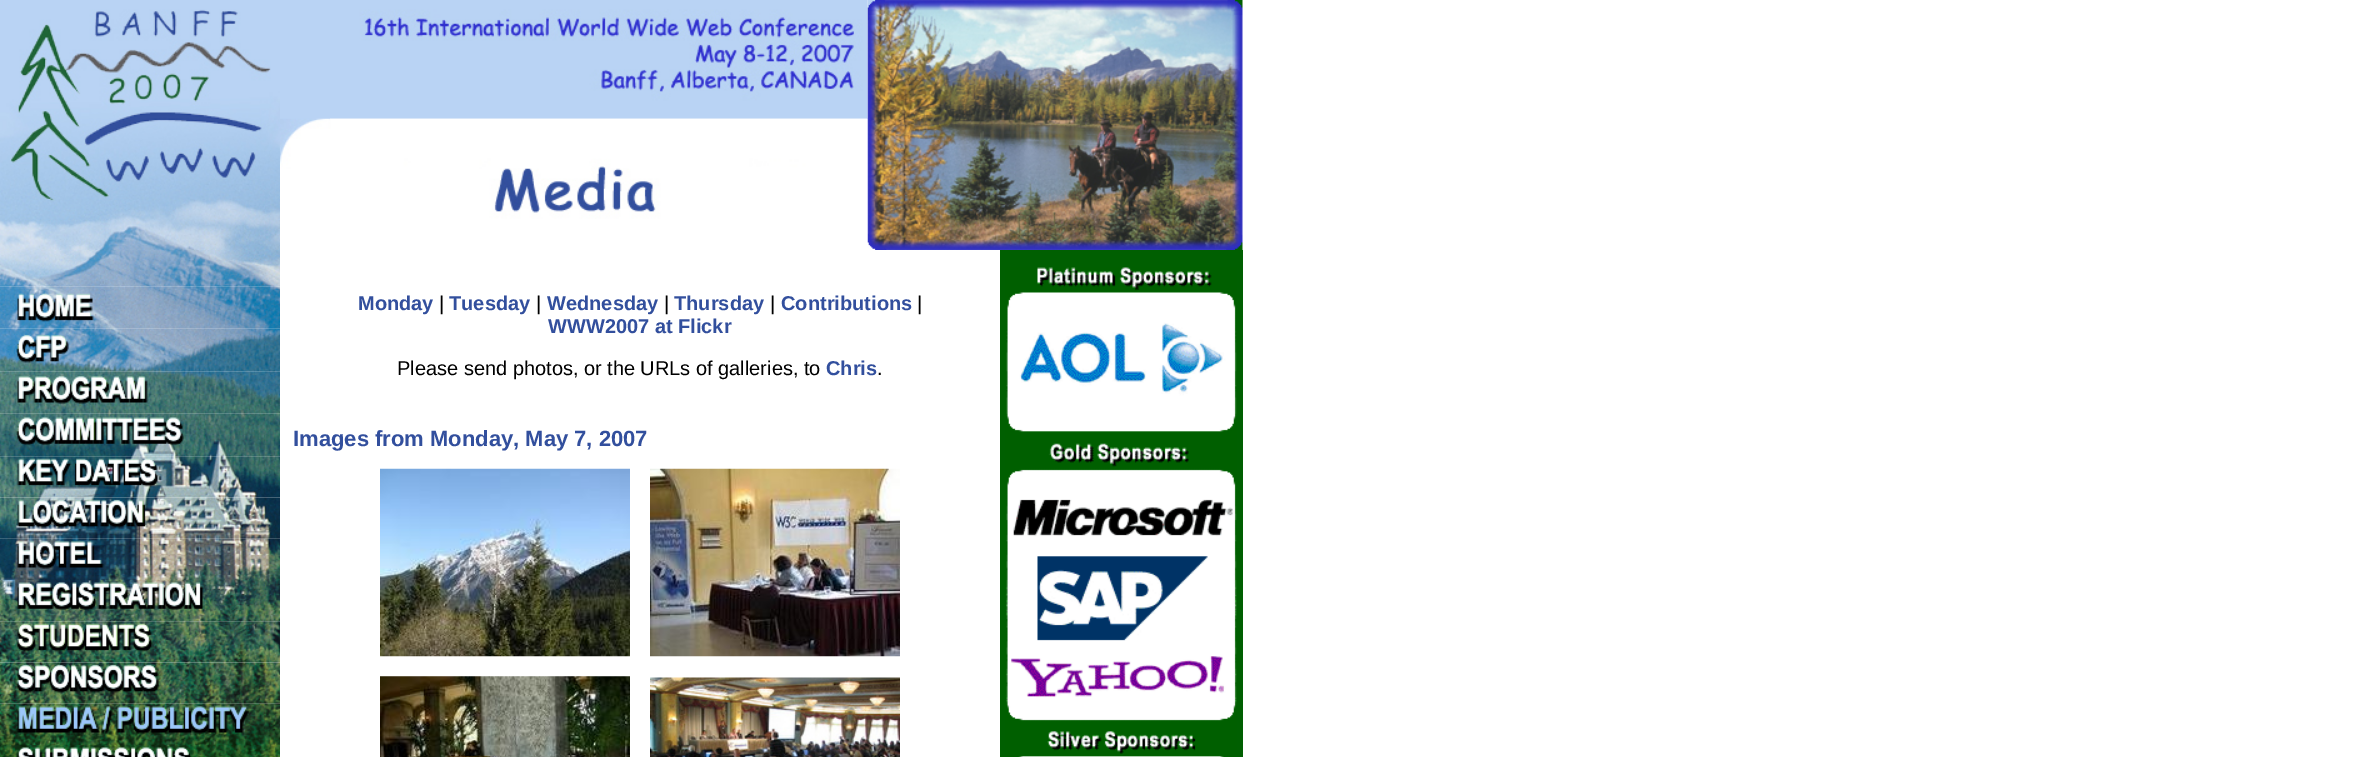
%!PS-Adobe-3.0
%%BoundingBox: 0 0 2376 757
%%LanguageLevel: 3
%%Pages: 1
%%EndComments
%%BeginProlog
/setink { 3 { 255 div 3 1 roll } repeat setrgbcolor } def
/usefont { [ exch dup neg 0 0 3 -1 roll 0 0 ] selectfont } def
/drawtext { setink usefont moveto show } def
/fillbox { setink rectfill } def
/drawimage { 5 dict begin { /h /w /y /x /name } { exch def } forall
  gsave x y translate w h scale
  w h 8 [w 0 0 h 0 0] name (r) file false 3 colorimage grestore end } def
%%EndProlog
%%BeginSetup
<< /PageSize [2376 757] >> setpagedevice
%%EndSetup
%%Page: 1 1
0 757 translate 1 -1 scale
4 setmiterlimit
0 0 2376 757 255 255 255 fillbox
(assets/img1.rgb) 0 0 280 250 drawimage
280 0 50 119 185 211 244 fillbox
(assets/img3.rgb) 867 0 376 250 drawimage
(assets/img2.rgb) 330 0 538 119 drawimage
(assets/img4.rgb) 280 118 588 125 drawimage
(assets/img5.rgb) 0 250 280 37 drawimage
(assets/img6.rgb) 0 286 280 43 drawimage
(assets/img7.rgb) 0 328 280 44 drawimage
(assets/img8.rgb) 0 371 280 43 drawimage
(assets/img9.rgb) 0 413 280 44 drawimage
(assets/img10.rgb) 0 456 280 42 drawimage
(assets/img11.rgb) 0 497 280 42 drawimage
(assets/img12.rgb) 0 538 280 42 drawimage
(assets/img13.rgb) 0 580 280 42 drawimage
(assets/img14.rgb) 0 621 280 42 drawimage
(assets/img15.rgb) 0 662 280 42 drawimage
(assets/img16.rgb) 0 703 280 42 drawimage
(assets/img17.rgb) 0 745 280 12 drawimage
(Monday) 358 310 /LiberationSans-Bold 20 50 79 157 drawtext
(|) 439 310 /LiberationSans-Regular 20 0 0 0 drawtext
(Tuesday) 449 310 /LiberationSans-Bold 20 50 79 157 drawtext
(|) 536 310 /LiberationSans-Regular 20 0 0 0 drawtext
(Wednesday) 547 310 /LiberationSans-Bold 20 50 79 157 drawtext
(|) 664 310 /LiberationSans-Regular 20 0 0 0 drawtext
(Thursday) 674 310 /LiberationSans-Bold 20 50 79 157 drawtext
(|) 770 310 /LiberationSans-Regular 20 0 0 0 drawtext
(Contributions) 781 310 /LiberationSans-Bold 20 50 79 157 drawtext
(|) 917 310 /LiberationSans-Regular 20 0 0 0 drawtext
(WWW2007 at Flickr) 548 333 /LiberationSans-Bold 20 50 79 157 drawtext
(Please send photos, or the URLs of galleries, to) 397 375 /LiberationSans-Regular 20 0 0 0 drawtext
(Chris) 826 375 /LiberationSans-Bold 20 50 79 157 drawtext
(.) 877 375 /LiberationSans-Regular 20 0 0 0 drawtext
(Images from Monday, May 7, 2007) 293 446 /LiberationSans-Bold 22 50 79 157 drawtext
(assets/img18.rgb) 380 468 250 189 drawimage
(assets/img19.rgb) 650 468 250 189 drawimage
(assets/img20.rgb) 380 676 250 81 drawimage
(assets/img21.rgb) 650 677 250 80 drawimage
1000 250 243 507 0 95 1 fillbox
(assets/img22.rgb) 1005 267 232 490 drawimage
showpage
%%EOF
